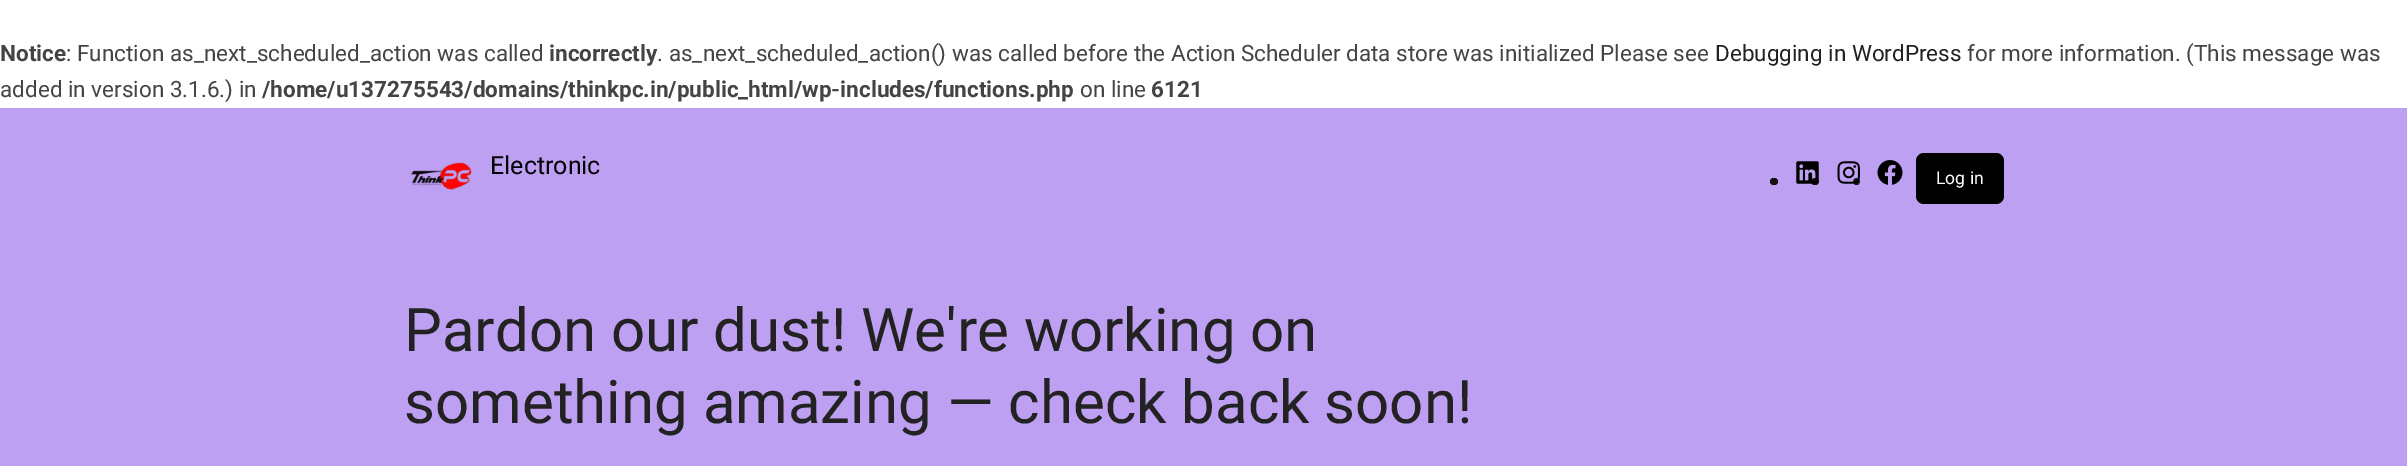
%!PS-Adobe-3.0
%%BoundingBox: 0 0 2407 466
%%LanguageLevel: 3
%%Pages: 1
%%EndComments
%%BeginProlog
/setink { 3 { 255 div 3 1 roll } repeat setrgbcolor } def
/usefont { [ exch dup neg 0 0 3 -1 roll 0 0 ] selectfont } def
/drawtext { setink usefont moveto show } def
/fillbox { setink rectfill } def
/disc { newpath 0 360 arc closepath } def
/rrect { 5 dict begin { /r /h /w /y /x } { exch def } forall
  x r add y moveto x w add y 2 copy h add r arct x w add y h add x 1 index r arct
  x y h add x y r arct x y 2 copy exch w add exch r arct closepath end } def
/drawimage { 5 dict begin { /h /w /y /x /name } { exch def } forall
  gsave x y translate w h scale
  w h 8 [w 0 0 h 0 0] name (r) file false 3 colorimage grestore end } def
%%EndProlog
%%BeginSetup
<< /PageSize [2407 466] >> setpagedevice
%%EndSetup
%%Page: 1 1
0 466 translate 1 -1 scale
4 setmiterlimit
0 0 2407 466 255 255 255 fillbox
(Notice) 0 61 /Roboto-Bold 22.5 68 68 68 drawtext
(: Function as_next_scheduled_action was called) 66 61 /Roboto-Regular 22.5 68 68 68 drawtext
(incorrectly) 549 61 /Roboto-Bold 22.5 68 68 68 drawtext
(. as_next_scheduled_action\(\) was called before the Action Scheduler data store was initialized Please see) 657 61 /Roboto-Regular 22.5 68 68 68 drawtext
(Debugging in WordPress) 1715 61 /Roboto-Regular 22.5 34 34 34 drawtext
(for more information. \(This message was) 1967 61 /Roboto-Regular 22.5 68 68 68 drawtext
(added in version 3.1.6.\) in) 0 97 /Roboto-Regular 22.5 68 68 68 drawtext
(/home/u137275543/domains/thinkpc.in/public_html/wp-includes/functions.php) 262 97 /Roboto-Bold 22.5 68 68 68 drawtext
(on line) 1080 97 /Roboto-Regular 22.5 68 68 68 drawtext
(6121) 1151 97 /Roboto-Bold 22.5 68 68 68 drawtext
0 108 2407 358 190 160 242 fillbox
(assets/img1.rgb) 411 162 61 28 drawimage
(Electronic) 490 174 /Roboto-Regular 25 0 0 0 drawtext
17 17 17 setink
1770 178 8 7 3.5 rrect fill
1811 178 8 7 3.5 rrect fill
(assets/img2.rgb) 1796 161 23 23 drawimage
1856.5 181.5 3.5 disc fill
(assets/img3.rgb) 1837 161 23 23 drawimage
(assets/img4.rgb) 1877 160 26 25 drawimage
0 0 0 setink
1916 153 88 51 8 rrect fill
(Log in) 1936 184 /Roboto-Regular 17.5 255 255 255 drawtext
(Pardon our dust! We're working on) 404 351 /Roboto-Regular 60 34 34 34 drawtext
(something amazing — check back soon!) 404 423 /Roboto-Regular 60 34 34 34 drawtext
showpage
%%EOF
